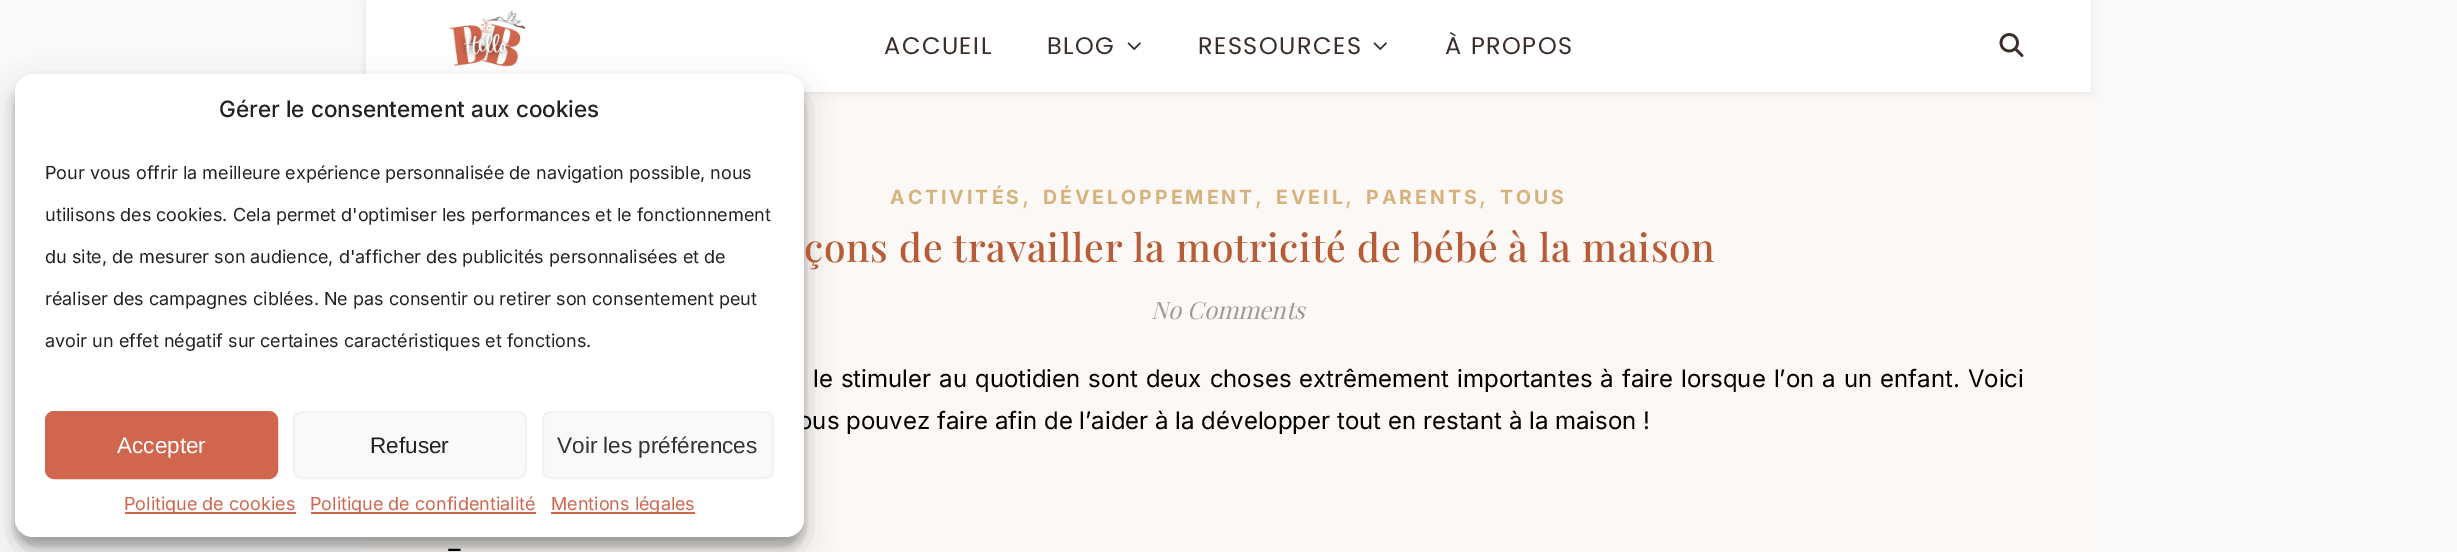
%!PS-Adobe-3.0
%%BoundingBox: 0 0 2457 552
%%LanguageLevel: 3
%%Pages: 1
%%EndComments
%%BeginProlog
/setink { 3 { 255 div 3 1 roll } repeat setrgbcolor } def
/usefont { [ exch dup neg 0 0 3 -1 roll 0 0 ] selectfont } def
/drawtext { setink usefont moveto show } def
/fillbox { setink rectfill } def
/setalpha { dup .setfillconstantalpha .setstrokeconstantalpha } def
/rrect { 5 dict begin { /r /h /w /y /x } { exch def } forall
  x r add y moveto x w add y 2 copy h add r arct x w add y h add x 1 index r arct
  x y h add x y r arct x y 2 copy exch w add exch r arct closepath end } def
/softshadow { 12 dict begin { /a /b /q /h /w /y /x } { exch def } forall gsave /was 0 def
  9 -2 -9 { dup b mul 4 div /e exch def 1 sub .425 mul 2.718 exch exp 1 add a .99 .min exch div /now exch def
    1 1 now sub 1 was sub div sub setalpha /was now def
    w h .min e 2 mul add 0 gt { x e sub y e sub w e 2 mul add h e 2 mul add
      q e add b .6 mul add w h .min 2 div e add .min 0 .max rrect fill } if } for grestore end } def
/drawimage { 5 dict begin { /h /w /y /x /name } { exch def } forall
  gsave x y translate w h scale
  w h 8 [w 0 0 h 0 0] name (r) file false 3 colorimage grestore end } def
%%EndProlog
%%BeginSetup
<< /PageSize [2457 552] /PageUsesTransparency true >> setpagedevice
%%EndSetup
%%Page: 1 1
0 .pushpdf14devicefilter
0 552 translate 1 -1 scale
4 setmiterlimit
0 0 2457 552 249 249 249 fillbox
366 92 1725 460 251 248 245 fillbox
58 47 42 setink
366 2 1725 91 0 4 0.1 softshadow
366 0 1725 92 255 255 255 fillbox
0 0 0 setink
15 83 789 463 18 4.5 0.23 softshadow
(assets/img1.rgb) 449 11 77 56 drawimage
15 89 789 463 18 15 0.19 softshadow
(ous pouvez faire afin de l’aider à la développer tout en restant à la maison !) 798 429 /Inter-Regular 24 0 0 0 drawtext
255 255 255 setink
15 74 789 463 18 rrect fill
(Gérer le consentement aux cookies) 219 117 /Inter-Medium 22.5 34 34 34 drawtext
(Pour vous offrir la meilleure expérience personnalisée de navigation possible, nous) 45 179 /Inter-Regular 18 34 34 34 drawtext
(utilisons des cookies. Cela permet d'optimiser les performances et le fonctionnement) 45 221 /Inter-Regular 18 34 34 34 drawtext
(du site, de mesurer son audience, d'afficher des publicités personnalisées et de) 45 263 /Inter-Regular 18 34 34 34 drawtext
(réaliser des campagnes ciblées. Ne pas consentir ou retirer son consentement peut) 45 305 /Inter-Regular 18 34 34 34 drawtext
(avoir un effet négatif sur certaines caractéristiques et fonctions.) 45 347 /Inter-Regular 18 34 34 34 drawtext
209 102 78 setink
46 412 231 66 8 rrect gsave fill grestore
2 setlinewidth
stroke
(Accepter) 117 453 /LiberationSans-Regular 22.5 255 255 255 drawtext
249 249 249 setink
294 412 232 66 8 rrect gsave fill grestore
242 242 242 setink
stroke
(Refuser) 370 453 /LiberationSans-Regular 22.5 34 34 34 drawtext
249 249 249 setink
543 412 230 66 8 rrect gsave fill grestore
242 242 242 setink
stroke
(Voir les préférences) 557 453 /LiberationSans-Regular 22.5 51 51 51 drawtext
125 512 171 2 209 102 78 fillbox
(Politique de cookies) 124 510 /Inter-Regular 18 209 102 78 drawtext
311 512 225 2 209 102 78 fillbox
(Politique de confidentialité) 310 510 /Inter-Regular 18 209 102 78 drawtext
551 512 144 2 209 102 78 fillbox
(Mentions légales) 551 510 /Inter-Regular 18 209 102 78 drawtext
/Poppins-Regular 24 usefont
58 47 42 setink
884 54 moveto 1.5 0 (ACCUEIL) ashow
1047 54 moveto 1.5 0 (BLOG) ashow
(assets/img2.rgb) 1127 42 14 9 drawimage
1198 54 moveto 1.5 0 (RESSOURCES) ashow
(assets/img2.rgb) 1373 42 14 9 drawimage
1445 54 moveto 1.5 0 (À PROPOS) ashow
(assets/img3.rgb) 1999 33 25 24 drawimage
/Inter-Bold 19.5 usefont
214 179 124 setink
890 204 moveto 3 0 (ACTIVITÉS) ashow
(,) 1022 204 /Inter-Regular 24 214 179 124 drawtext
/Inter-Bold 19.5 usefont
1043 204 moveto 3 0 (DÉVELOPPEMENT) ashow
(,) 1255 204 /Inter-Regular 24 214 179 124 drawtext
/Inter-Bold 19.5 usefont
1276 204 moveto 3 0 (EVEIL) ashow
(,) 1345 204 /Inter-Regular 24 214 179 124 drawtext
/Inter-Bold 19.5 usefont
1366 204 moveto 3 0 (PARENTS) ashow
(,) 1479 204 /Inter-Regular 24 214 179 124 drawtext
/Inter-Bold 19.5 usefont
1500 204 moveto 3 0 (TOUS) ashow
/PlayfairDisplay-Medium 39 usefont
184 92 56 setink
804 262 moveto 0.75 0 (çons de travailler la motricité de bébé à la maison) ashow
(No Comments) 1151 319 /PlayfairDisplay-Italic 24 154 154 154 drawtext
/Inter-Regular 24 usefont
0 0 0 setink
813 387 moveto 1.25 0 32 (le stimuler au quotidien sont deux choses extrêmement importantes à faire lorsque l’on a un enfant. Voici) widthshow
(-) 446 559 /PlayfairDisplay-Medium 34 0 0 0 drawtext
.poppdf14devicefilter showpage
%%EOF
